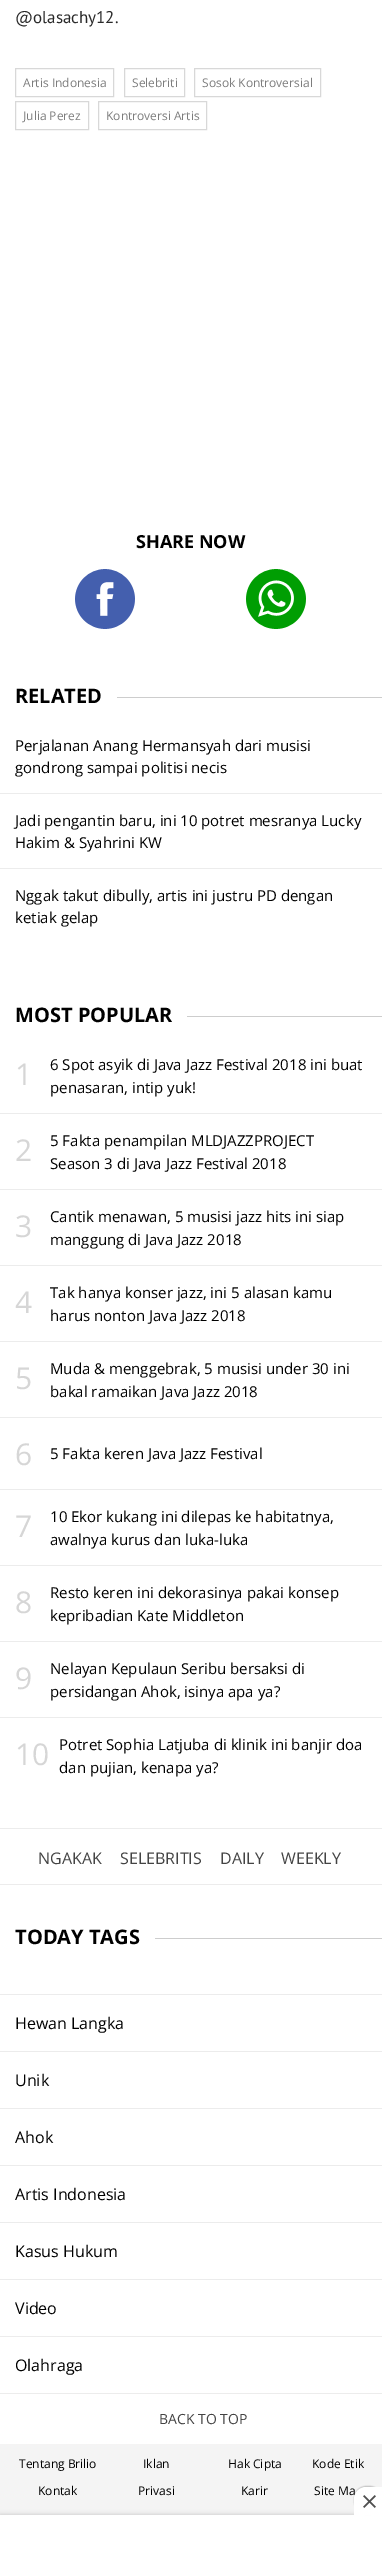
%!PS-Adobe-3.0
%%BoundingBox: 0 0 382 2569
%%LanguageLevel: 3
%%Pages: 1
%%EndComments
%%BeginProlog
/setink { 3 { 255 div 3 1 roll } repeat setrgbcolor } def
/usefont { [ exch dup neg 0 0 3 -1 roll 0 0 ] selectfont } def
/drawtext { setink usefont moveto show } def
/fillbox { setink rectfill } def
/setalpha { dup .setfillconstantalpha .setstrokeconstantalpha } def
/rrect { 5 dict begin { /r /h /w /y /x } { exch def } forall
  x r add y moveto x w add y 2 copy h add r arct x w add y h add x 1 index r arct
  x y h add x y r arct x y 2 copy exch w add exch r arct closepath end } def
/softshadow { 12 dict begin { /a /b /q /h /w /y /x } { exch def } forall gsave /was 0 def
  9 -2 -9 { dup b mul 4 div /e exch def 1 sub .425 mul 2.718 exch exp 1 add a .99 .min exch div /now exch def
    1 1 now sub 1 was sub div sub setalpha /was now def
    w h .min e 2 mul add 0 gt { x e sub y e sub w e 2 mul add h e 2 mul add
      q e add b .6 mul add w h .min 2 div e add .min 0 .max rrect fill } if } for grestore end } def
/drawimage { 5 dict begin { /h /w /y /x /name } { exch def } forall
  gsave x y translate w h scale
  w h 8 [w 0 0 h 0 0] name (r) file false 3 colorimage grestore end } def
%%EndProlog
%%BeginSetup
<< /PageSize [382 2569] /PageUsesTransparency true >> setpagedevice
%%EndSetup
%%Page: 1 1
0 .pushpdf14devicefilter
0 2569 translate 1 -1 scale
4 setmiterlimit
0 0 382 2569 255 255 255 fillbox
(@olasachy12.) 15 23 /PTSans-Regular 17 41 41 41 drawtext
216 216 216 setink
15.5 68.5 98 28 rectstroke
(Artis Indonesia) 23 87 /OpenSans-Regular 12 125 125 125 drawtext
216 216 216 setink
124.5 68.5 60 28 rectstroke
(Selebriti) 132 87 /OpenSans-Regular 12 125 125 125 drawtext
216 216 216 setink
194.5 68.5 126 28 rectstroke
(Sosok Kontroversial) 202 87 /OpenSans-Regular 12 125 125 125 drawtext
216 216 216 setink
15.5 101.5 73 28 rectstroke
(Julia Perez) 23 120 /OpenSans-Regular 12 125 125 125 drawtext
216 216 216 setink
98.5 101.5 108 28 rectstroke
(Kontroversi Artis) 106 120 /OpenSans-Regular 12 125 125 125 drawtext
(SHARE NOW) 136 548 /OpenSans-Bold 18 0 0 0 drawtext
(assets/img1.rgb) 75 569 60 60 drawimage
(assets/img2.rgb) 246 569 60 60 drawimage
(RELATED) 15 703 /OpenSans-Bold 20 0 0 0 drawtext
117 697 265 1 205 205 205 fillbox
(Perjalanan Anang Hermansyah dari musisi) 15 751 /OpenSans-Regular 15 0 0 0 drawtext
(gondrong sampai politisi necis) 15 773 /OpenSans-Regular 15 0 0 0 drawtext
0 793 382 1 236 236 236 fillbox
(Jadi pengantin baru, ini 10 potret mesranya Lucky) 15 826 /OpenSans-Regular 15 0 0 0 drawtext
(Hakim & Syahrini KW) 15 848 /OpenSans-Regular 15 0 0 0 drawtext
0 868 382 1 236 236 236 fillbox
(Nggak takut dibully, artis ini justru PD dengan) 15 901 /OpenSans-Regular 15 0 0 0 drawtext
(ketiak gelap) 15 923 /OpenSans-Regular 15 0 0 0 drawtext
(MOST POPULAR) 15 1022 /OpenSans-Bold 20 0 0 0 drawtext
187 1016 195 1 205 205 205 fillbox
(1) 15 1085 /OpenSans-Regular 30 214 214 214 drawtext
(6 Spot asyik di Java Jazz Festival 2018 ini buat) 50 1070 /OpenSans-Regular 15 0 0 0 drawtext
(penasaran, intip yuk!) 50 1093 /OpenSans-Regular 15 0 0 0 drawtext
0 1113 382 1 236 236 236 fillbox
(2) 15 1161 /OpenSans-Regular 30 214 214 214 drawtext
(5 Fakta penampilan MLDJAZZPROJECT) 50 1146 /OpenSans-Regular 15 0 0 0 drawtext
(Season 3 di Java Jazz Festival 2018) 50 1169 /OpenSans-Regular 15 0 0 0 drawtext
0 1189 382 1 236 236 236 fillbox
(3) 15 1237 /OpenSans-Regular 30 214 214 214 drawtext
(Cantik menawan, 5 musisi jazz hits ini siap) 50 1222 /OpenSans-Regular 15 0 0 0 drawtext
(manggung di Java Jazz 2018) 50 1245 /OpenSans-Regular 15 0 0 0 drawtext
0 1265 382 1 236 236 236 fillbox
(4) 15 1313 /OpenSans-Regular 30 214 214 214 drawtext
(Tak hanya konser jazz, ini 5 alasan kamu) 50 1298 /OpenSans-Regular 15 0 0 0 drawtext
(harus nonton Java Jazz 2018) 50 1321 /OpenSans-Regular 15 0 0 0 drawtext
0 1341 382 1 236 236 236 fillbox
(5) 15 1389 /OpenSans-Regular 30 214 214 214 drawtext
(Muda & menggebrak, 5 musisi under 30 ini) 50 1374 /OpenSans-Regular 15 0 0 0 drawtext
(bakal ramaikan Java Jazz 2018) 50 1397 /OpenSans-Regular 15 0 0 0 drawtext
0 1417 382 1 236 236 236 fillbox
(6) 15 1465 /OpenSans-Regular 30 214 214 214 drawtext
(5 Fakta keren Java Jazz Festival) 50 1459 /OpenSans-Regular 15 0 0 0 drawtext
0 1489 382 1 236 236 236 fillbox
(7) 15 1537 /OpenSans-Regular 30 214 214 214 drawtext
(10 Ekor kukang ini dilepas ke habitatnya,) 50 1522 /OpenSans-Regular 15 0 0 0 drawtext
(awalnya kurus dan luka-luka) 50 1545 /OpenSans-Regular 15 0 0 0 drawtext
0 1565 382 1 236 236 236 fillbox
(8) 15 1613 /OpenSans-Regular 30 214 214 214 drawtext
(Resto keren ini dekorasinya pakai konsep) 50 1598 /OpenSans-Regular 15 0 0 0 drawtext
(kepribadian Kate Middleton) 50 1621 /OpenSans-Regular 15 0 0 0 drawtext
0 1641 382 1 236 236 236 fillbox
(9) 15 1689 /OpenSans-Regular 30 214 214 214 drawtext
(Nelayan Kepulaun Seribu bersaksi di) 50 1674 /OpenSans-Regular 15 0 0 0 drawtext
(persidangan Ahok, isinya apa ya?) 50 1697 /OpenSans-Regular 15 0 0 0 drawtext
0 1717 382 1 236 236 236 fillbox
(10) 15 1765 /OpenSans-Regular 30 214 214 214 drawtext
(Potret Sophia Latjuba di klinik ini banjir doa) 59 1750 /OpenSans-Regular 15 0 0 0 drawtext
(dan pujian, kenapa ya?) 59 1773 /OpenSans-Regular 15 0 0 0 drawtext
0 1828 382 1 236 236 236 fillbox
0 1884 382 1 236 236 236 fillbox
(NGAKAK) 38 1864 /OpenSans-Regular 16 68 68 68 drawtext
(SELEBRITIS) 120 1864 /OpenSans-Regular 16 68 68 68 drawtext
(DAILY) 220 1864 /OpenSans-Regular 16 68 68 68 drawtext
(WEEKLY) 281 1864 /OpenSans-Regular 16 68 68 68 drawtext
(TODAY TAGS) 15 1944 /OpenSans-Bold 20 0 0 0 drawtext
155 1938 227 1 205 205 205 fillbox
0 1994 382 1 236 236 236 fillbox
0 2051 382 1 236 236 236 fillbox
(Hewan Langka) 15 2029 /OpenSans-Regular 16 0 0 0 drawtext
0 2108 382 1 236 236 236 fillbox
(Unik) 15 2086 /OpenSans-Regular 16 0 0 0 drawtext
0 2165 382 1 236 236 236 fillbox
(Ahok) 15 2143 /OpenSans-Regular 16 0 0 0 drawtext
0 2222 382 1 236 236 236 fillbox
(Artis Indonesia) 15 2200 /OpenSans-Regular 16 0 0 0 drawtext
0 2279 382 1 236 236 236 fillbox
(Kasus Hukum) 15 2257 /OpenSans-Regular 16 0 0 0 drawtext
0 2336 382 1 236 236 236 fillbox
(Video) 15 2314 /OpenSans-Regular 16 0 0 0 drawtext
0 2393 382 1 236 236 236 fillbox
(Olahraga) 15 2371 /OpenSans-Regular 16 0 0 0 drawtext
(BACK TO TOP) 159 2424 /OpenSans-Regular 14 68 68 68 drawtext
0 2444 382 71 244 244 244 fillbox
(Tentang Brilio) 19 2468 /OpenSans-Regular 12 0 0 0 drawtext
(Iklan) 143 2468 /OpenSans-Regular 12 0 0 0 drawtext
(Hak Cipta) 228 2468 /OpenSans-Regular 12 0 0 0 drawtext
(Kode Etik) 312 2468 /OpenSans-Regular 12 0 0 0 drawtext
(Kontak) 38 2495 /OpenSans-Regular 12 0 0 0 drawtext
(Privasi) 138 2495 /OpenSans-Regular 12 0 0 0 drawtext
(Karir) 241 2495 /OpenSans-Regular 12 0 0 0 drawtext
(Site Ma) 314 2495 /OpenSans-Regular 12 0 0 0 drawtext
0 2515 382 54 0 2.5 0.2 softshadow
0 2515 382 54 255 255 255 fillbox
0 0 0 setink
354 2486 28 28 12 0.5 0.2 softshadow
255 255 255 setink
366 2487 moveto 382 2487 lineto 382 2515 lineto 354 2515 lineto 354 2499 lineto 354 2492.5 359.5 2487 366 2487 curveto closepath fill
(assets/img3.rgb) 363 2495 13 13 drawimage
.poppdf14devicefilter showpage
%%EOF
